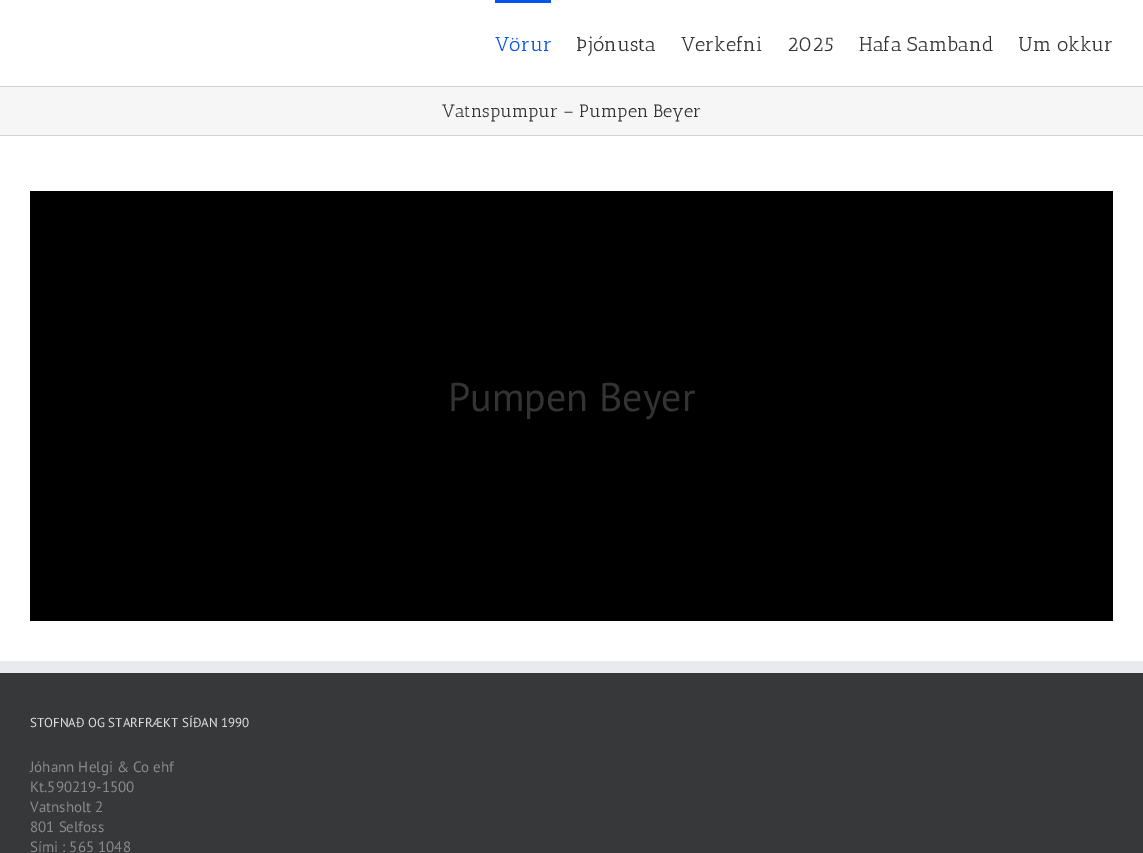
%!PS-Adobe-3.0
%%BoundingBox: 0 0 1143 853
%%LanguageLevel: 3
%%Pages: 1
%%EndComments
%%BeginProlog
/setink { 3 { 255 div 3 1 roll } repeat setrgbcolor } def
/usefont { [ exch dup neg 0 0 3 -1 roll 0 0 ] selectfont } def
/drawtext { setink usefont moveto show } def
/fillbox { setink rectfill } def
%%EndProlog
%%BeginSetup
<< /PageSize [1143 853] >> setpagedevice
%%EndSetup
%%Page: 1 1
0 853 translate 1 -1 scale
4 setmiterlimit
0 0 1143 853 255 255 255 fillbox
495 0 56 3 7 83 237 fillbox
(Vörur) 495 51 /AnticSlab-Regular 20 7 83 237 drawtext
(Þjónusta) 576 51 /AnticSlab-Regular 20 51 51 51 drawtext
(Verkefni) 681 51 /AnticSlab-Regular 20 51 51 51 drawtext
(2025) 787 51 /AnticSlab-Regular 20 51 51 51 drawtext
(Hafa Samband) 859 51 /AnticSlab-Regular 20 51 51 51 drawtext
(Um okkur) 1018 51 /AnticSlab-Regular 20 51 51 51 drawtext
0 87 1143 48 246 246 246 fillbox
0 86 1143 1 210 211 212 fillbox
0 135 1143 1 210 211 212 fillbox
(Vatnspumpur – Pumpen Beyer) 442 117 /AnticSlab-Regular 18 51 51 51 drawtext
30 191 1083 430 0 0 0 fillbox
(Pumpen Beyer) 448 411 /PTSans-Regular 40 51 51 51 drawtext
0 673 1143 180 54 56 57 fillbox
0 661 1143 12 233 234 238 fillbox
(STOFNAÐ OG STARFRÆKT SÍÐAN 1990) 30 727 /PTSans-Regular 13 221 221 221 drawtext
(Jóhann Helgi & Co ehf) 30 772 /PTSans-Regular 15 140 137 137 drawtext
(Kt.590219-1500) 30 792 /PTSans-Regular 15 140 137 137 drawtext
(Vatnsholt 2) 30 812 /PTSans-Regular 15 140 137 137 drawtext
(801 Selfoss) 30 832 /PTSans-Regular 15 140 137 137 drawtext
(Sími : 565 1048) 30 852 /PTSans-Regular 15 140 137 137 drawtext
showpage
%%EOF
